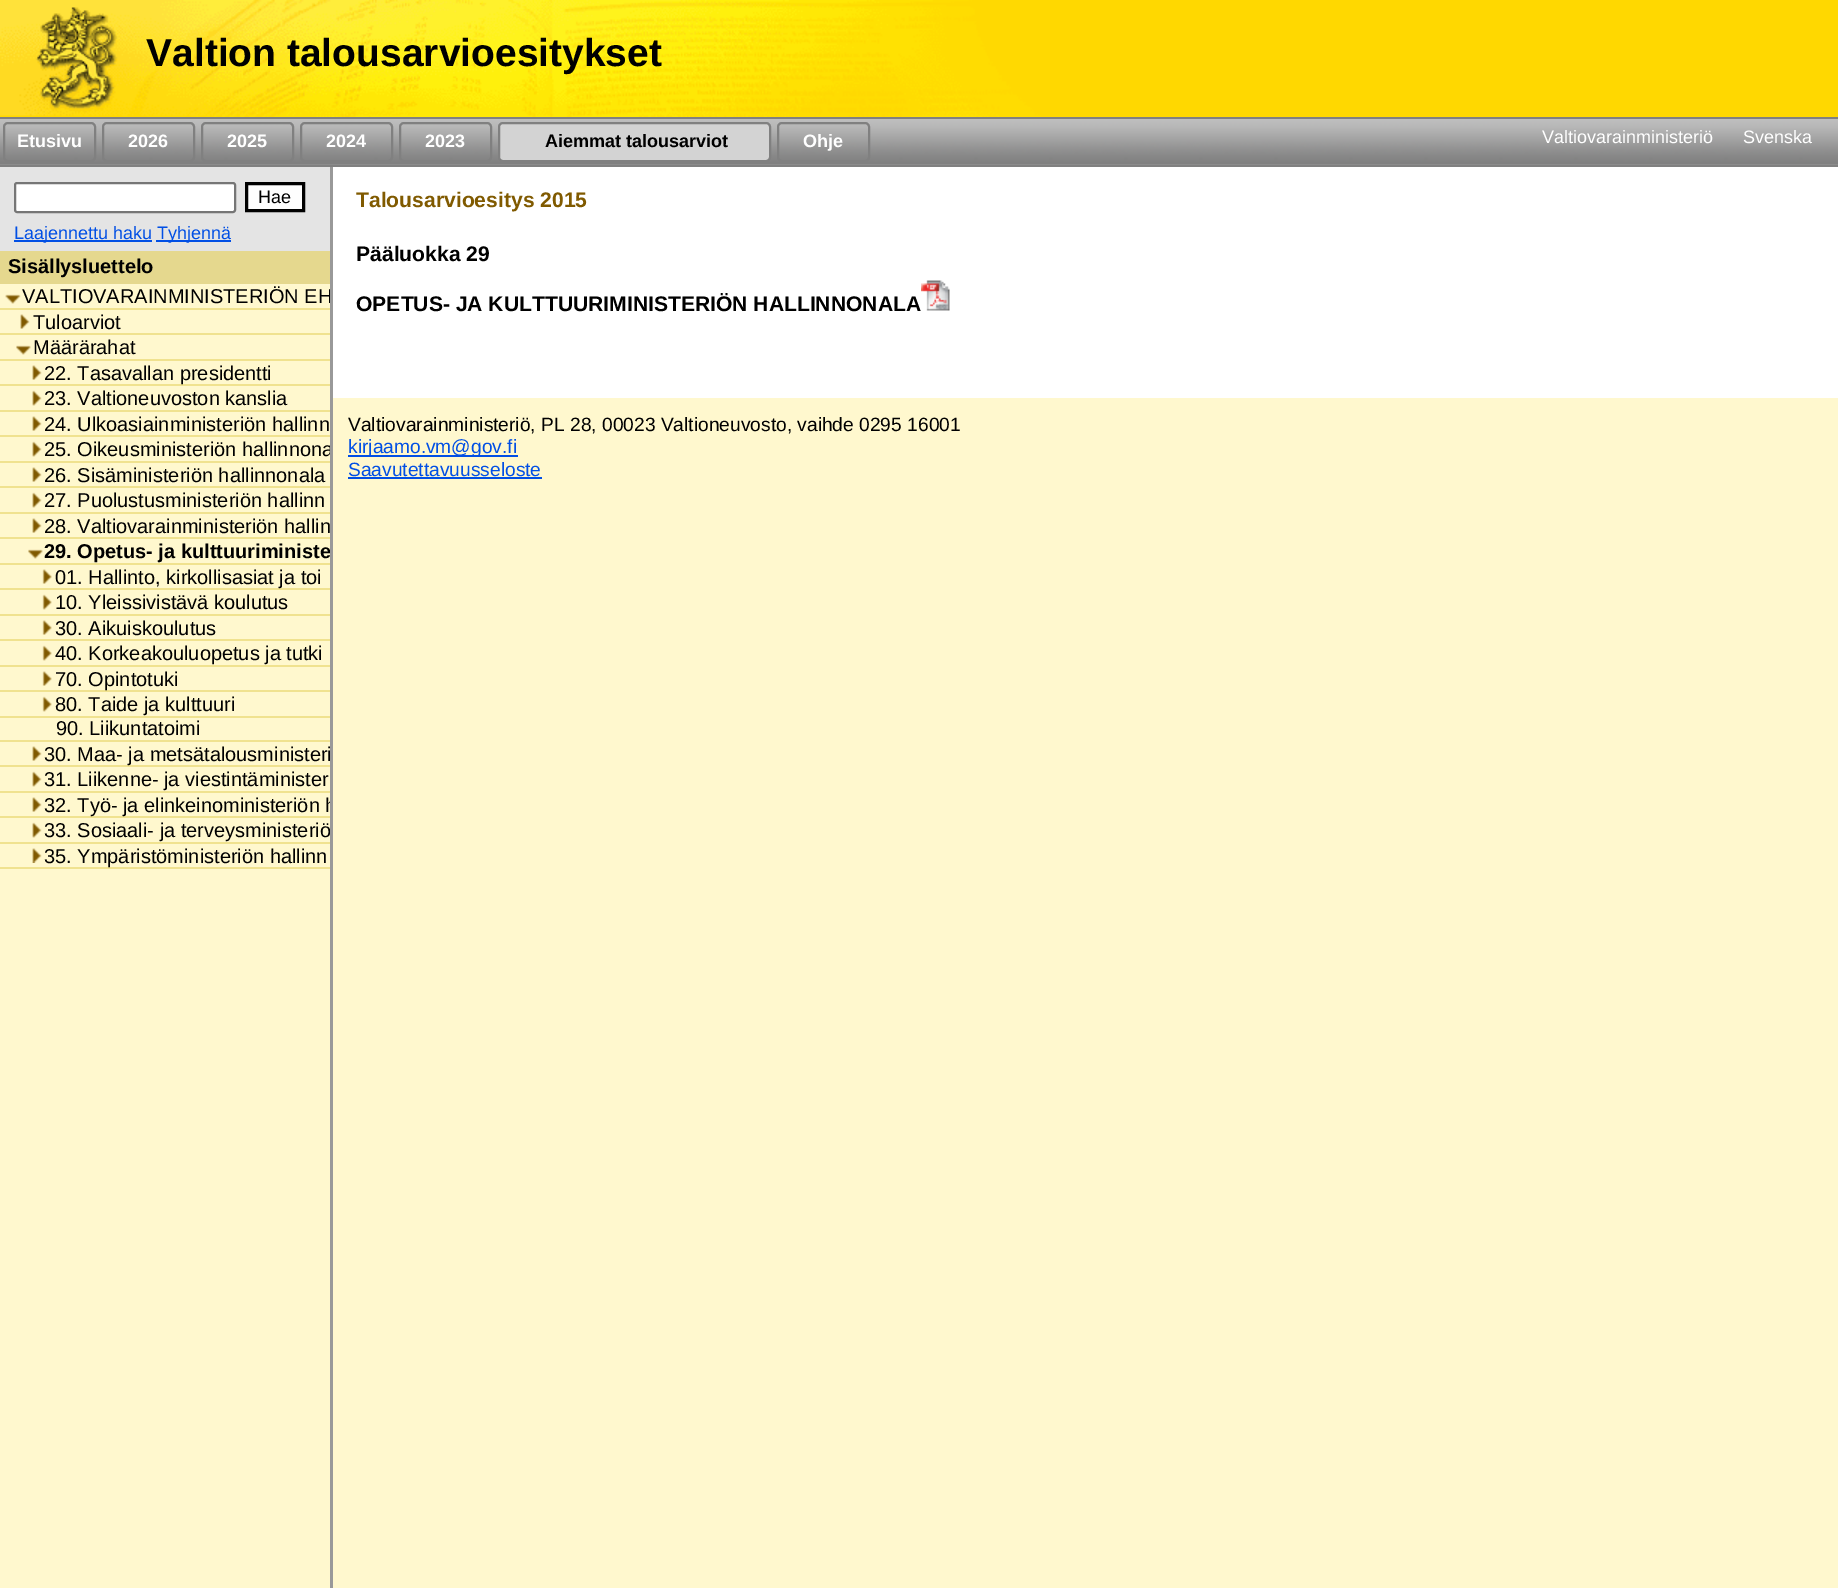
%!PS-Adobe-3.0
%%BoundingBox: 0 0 1838 1588
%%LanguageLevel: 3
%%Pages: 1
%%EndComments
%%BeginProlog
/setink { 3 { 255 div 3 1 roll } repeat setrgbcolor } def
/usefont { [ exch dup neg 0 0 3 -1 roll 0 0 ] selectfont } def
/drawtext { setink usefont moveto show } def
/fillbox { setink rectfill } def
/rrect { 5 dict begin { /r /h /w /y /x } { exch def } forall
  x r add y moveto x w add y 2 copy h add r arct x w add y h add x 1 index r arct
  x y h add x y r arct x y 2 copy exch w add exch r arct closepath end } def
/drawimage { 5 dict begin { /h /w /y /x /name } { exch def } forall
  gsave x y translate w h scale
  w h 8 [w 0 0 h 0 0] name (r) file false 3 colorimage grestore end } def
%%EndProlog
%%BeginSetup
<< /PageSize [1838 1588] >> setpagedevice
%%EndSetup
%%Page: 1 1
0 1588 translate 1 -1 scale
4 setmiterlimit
0 0 1838 1588 255 248 206 fillbox
(assets/img1.rgb) 0 0 1050 117 drawimage
(Valtion talousarvioesitykset) 146 66 /LiberationSans-Bold 39 0 0 0 drawtext
1050 0 788 117 255 216 0 fillbox
(assets/img2.rgb) 0 119 1838 46 drawimage
0 117 1838 2 128 128 128 fillbox
330 165 3 1423 153 153 153 fillbox
0 165 1838 2 128 128 128 fillbox
2 setlinewidth
4 123 91 38 4 rrect stroke
(Etusivu) 17 147 /LiberationSans-Bold 18 255 255 255 drawtext
128 128 128 setink
103 123 91 38 4 rrect stroke
(2026) 128 147 /LiberationSans-Bold 18 255 255 255 drawtext
128 128 128 setink
202 123 91 38 4 rrect stroke
(2025) 227 147 /LiberationSans-Bold 18 255 255 255 drawtext
128 128 128 setink
301 123 91 38 4 rrect stroke
(2024) 326 147 /LiberationSans-Bold 18 255 255 255 drawtext
128 128 128 setink
400 123 91 38 4 rrect stroke
(2023) 425 147 /LiberationSans-Bold 18 255 255 255 drawtext
211 211 211 setink
499 123 271 38 4 rrect gsave fill grestore
128 128 128 setink
stroke
(Aiemmat talousarviot) 545 147 /LiberationSans-Bold 18 0 0 0 drawtext
128 128 128 setink
778 123 91 38 4 rrect stroke
(Ohje) 803 147 /LiberationSans-Bold 18 255 255 255 drawtext
(Valtiovarainministeriö) 1542 143 /LiberationSans-Regular 18 255 255 255 drawtext
(Svenska) 1743 143 /LiberationSans-Regular 18 255 255 255 drawtext
0 167 330 84 228 228 228 fillbox
255 255 255 setink
15 183 220 29 2 rrect gsave fill grestore
118 118 118 setink
stroke
254 254 254 setink
246.5 183.5 moveto 303.5 183.5 lineto 303.5 210.5 lineto 246.5 210.5 lineto closepath gsave fill grestore
0 0 0 setink
3 setlinewidth
stroke
(Hae) 258 203 /LiberationSans-Regular 18 0 0 0 drawtext
14 240 138 2 1 79 229 fillbox
(Laajennettu haku) 14 239 /LiberationSans-Regular 18 1 79 229 drawtext
156 240 75 2 1 79 229 fillbox
(Tyhjennä) 157 239 /LiberationSans-Regular 18 1 79 229 drawtext
0 251 330 33 229 216 142 fillbox
(Sisällysluettelo) 8 273 /LiberationSans-Bold 20 0 0 0 drawtext
0 308 330 2 240 226 143 fillbox
(assets/img3.rgb) 5 294 16 10 drawimage
gsave
0 251 330 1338 rectclip
(VALTIOVARAINMINISTERIÖN EH) 22 303 /LiberationSans-Regular 20 0 0 0 drawtext
grestore
0 333 330 2 240 226 143 fillbox
(assets/img4.rgb) 20 314 10 15 drawimage
(Tuloarviot) 33 329 /LiberationSans-Regular 20 0 0 0 drawtext
0 359 330 2 240 226 143 fillbox
(assets/img5.rgb) 16 345 15 10 drawimage
(Määrärahat) 33 354 /LiberationSans-Regular 20 0 0 0 drawtext
0 384 330 2 240 226 143 fillbox
(assets/img4.rgb) 32 365 10 15 drawimage
(22. Tasavallan presidentti) 44 380 /LiberationSans-Regular 20 0 0 0 drawtext
0 410 330 2 240 226 143 fillbox
(assets/img6.rgb) 32 390 10 16 drawimage
(23. Valtioneuvoston kanslia) 44 405 /LiberationSans-Regular 20 0 0 0 drawtext
0 435 330 2 240 226 143 fillbox
(assets/img4.rgb) 32 416 10 15 drawimage
(24. Ulkoasiainministeriön hallinn) 44 431 /LiberationSans-Regular 20 0 0 0 drawtext
0 461 330 2 240 226 143 fillbox
(assets/img6.rgb) 32 441 10 16 drawimage
gsave
0 251 330 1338 rectclip
(25. Oikeusministeriön hallinnona) 44 456 /LiberationSans-Regular 20 0 0 0 drawtext
grestore
0 486 330 2 240 226 143 fillbox
(assets/img4.rgb) 32 467 10 15 drawimage
(26. Sisäministeriön hallinnonala) 44 482 /LiberationSans-Regular 20 0 0 0 drawtext
0 512 330 2 240 226 143 fillbox
(assets/img6.rgb) 32 492 10 16 drawimage
(27. Puolustusministeriön hallinn) 44 507 /LiberationSans-Regular 20 0 0 0 drawtext
0 537 330 2 240 226 143 fillbox
(assets/img4.rgb) 32 518 10 15 drawimage
(28. Valtiovarainministeriön hallin) 44 533 /LiberationSans-Regular 20 0 0 0 drawtext
0 563 330 2 240 226 143 fillbox
(assets/img5.rgb) 28 549 15 10 drawimage
gsave
0 251 330 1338 rectclip
(29. Opetus- ja kulttuuriministe) 44 558 /LiberationSans-Bold 20 0 0 0 drawtext
grestore
0 588 330 2 240 226 143 fillbox
(assets/img7.rgb) 42 569 10 15 drawimage
(01. Hallinto, kirkollisasiat ja toi) 55 584 /LiberationSans-Regular 20 0 0 0 drawtext
0 614 330 2 240 226 143 fillbox
(assets/img8.rgb) 42 594 10 16 drawimage
(10. Yleissivistävä koulutus) 55 609 /LiberationSans-Regular 20 0 0 0 drawtext
0 639 330 2 240 226 143 fillbox
(assets/img7.rgb) 42 620 10 15 drawimage
(30. Aikuiskoulutus) 55 635 /LiberationSans-Regular 20 0 0 0 drawtext
0 665 330 2 240 226 143 fillbox
(assets/img8.rgb) 42 645 10 16 drawimage
(40. Korkeakouluopetus ja tutki) 55 660 /LiberationSans-Regular 20 0 0 0 drawtext
0 690 330 2 240 226 143 fillbox
(assets/img7.rgb) 42 671 10 15 drawimage
(70. Opintotuki) 55 686 /LiberationSans-Regular 20 0 0 0 drawtext
0 716 330 2 240 226 143 fillbox
(assets/img8.rgb) 42 696 10 16 drawimage
(80. Taide ja kulttuuri) 55 711 /LiberationSans-Regular 20 0 0 0 drawtext
0 740 330 2 240 226 143 fillbox
(90. Liikuntatoimi) 56 735 /LiberationSans-Regular 20 0 0 0 drawtext
0 765 330 2 240 226 143 fillbox
(assets/img4.rgb) 32 746 10 15 drawimage
gsave
0 251 330 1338 rectclip
(30. Maa- ja metsätalousministeri) 44 761 /LiberationSans-Regular 20 0 0 0 drawtext
grestore
0 791 330 2 240 226 143 fillbox
(assets/img6.rgb) 32 771 10 16 drawimage
(31. Liikenne- ja viestintäminister) 44 786 /LiberationSans-Regular 20 0 0 0 drawtext
0 816 330 2 240 226 143 fillbox
(assets/img4.rgb) 32 797 10 15 drawimage
gsave
0 251 330 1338 rectclip
(32. Työ- ja elinkeinoministeriön h) 44 812 /LiberationSans-Regular 20 0 0 0 drawtext
grestore
0 842 330 2 240 226 143 fillbox
(assets/img6.rgb) 32 822 10 16 drawimage
gsave
0 251 330 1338 rectclip
(33. Sosiaali- ja terveysministeriö) 44 837 /LiberationSans-Regular 20 0 0 0 drawtext
grestore
0 867 330 2 240 226 143 fillbox
(assets/img9.rgb) 32 848 10 15 drawimage
(35. Ympäristöministeriön hallinn) 44 863 /LiberationSans-Regular 20 0 0 0 drawtext
333 167 1505 231 255 255 255 fillbox
(Talousarvioesitys 2015) 356 207 /LiberationSans-Bold 21.1 128 90 0 drawtext
(Pääluokka 29) 356 261 /LiberationSans-Bold 21.1 0 0 0 drawtext
(OPETUS- JA KULTTUURIMINISTERIÖN HALLINNONALA) 356 311 /LiberationSans-Bold 21.1 0 0 0 drawtext
(assets/img10.rgb) 921 280 29 31 drawimage
(Valtiovarainministeriö, PL 28, 00023 Valtioneuvosto, vaihde 0295 16001) 348 431 /LiberationSans-Regular 19.2 0 0 0 drawtext
348 455 170 2 1 79 229 fillbox
(kirjaamo.vm@gov.fi) 348 453 /LiberationSans-Regular 19.2 1 79 229 drawtext
(Saavutettavuusseloste) 348 476 /LiberationSans-Regular 19.2 1 79 229 drawtext
348 477 194 2 1 79 229 fillbox
showpage
%%EOF
